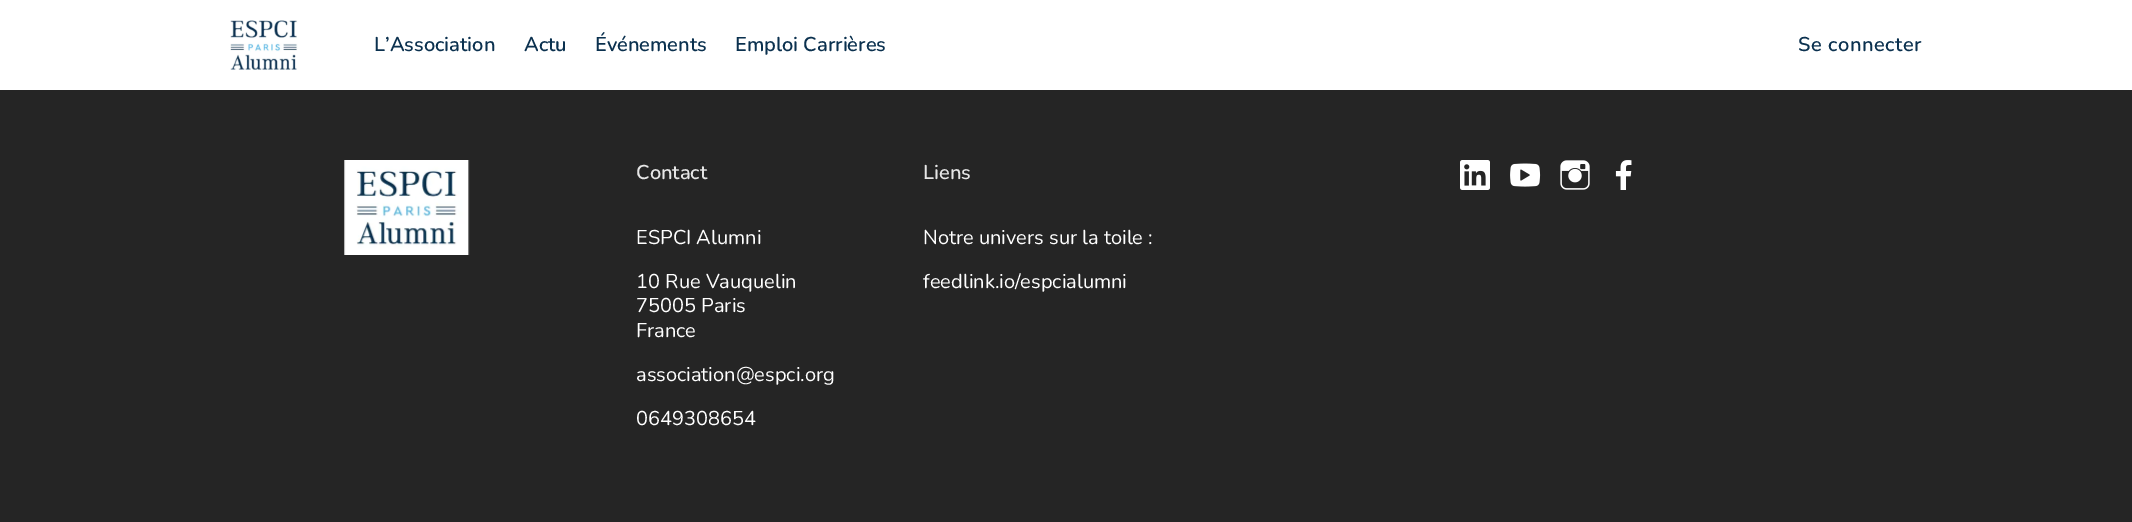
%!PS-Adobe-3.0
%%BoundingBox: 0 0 2132 522
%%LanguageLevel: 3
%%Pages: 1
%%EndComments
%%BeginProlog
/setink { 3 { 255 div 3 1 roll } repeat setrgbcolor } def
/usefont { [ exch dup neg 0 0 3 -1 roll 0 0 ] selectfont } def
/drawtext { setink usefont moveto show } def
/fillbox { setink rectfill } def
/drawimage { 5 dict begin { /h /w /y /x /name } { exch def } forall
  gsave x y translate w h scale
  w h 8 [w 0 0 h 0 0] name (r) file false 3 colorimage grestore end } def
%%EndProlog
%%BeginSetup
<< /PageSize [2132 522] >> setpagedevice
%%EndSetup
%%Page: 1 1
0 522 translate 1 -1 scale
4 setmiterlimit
0 0 2132 522 37 37 37 fillbox
0 0 2132 90 255 255 255 fillbox
(assets/img1.rgb) 230 20 68 50 drawimage
(L’Association) 374 51 /Nunito-SemiBold 20 11 49 79 drawtext
(Actu) 524 51 /Nunito-SemiBold 20 11 49 79 drawtext
(Événements) 595 51 /Nunito-SemiBold 20 11 49 79 drawtext
(Emploi Carrières) 735 51 /Nunito-SemiBold 20 11 49 79 drawtext
1798 51 moveto 0.5 0 (Se connecter) ashow
(assets/img2.rgb) 344 160 126 95 drawimage
(Contact) 636 179 /Nunito-SemiBold 20 230 230 230 drawtext
(ESPCI Alumni) 636 244 /Nunito-Regular 20 255 255 255 drawtext
(10 Rue Vauquelin) 636 288 /Nunito-Regular 20 255 255 255 drawtext
(75005 Paris) 636 312 /Nunito-Regular 20 255 255 255 drawtext
(France) 636 337 /Nunito-Regular 20 255 255 255 drawtext
(association@espci.org) 636 381 /Nunito-Regular 20 255 255 255 drawtext
(0649308654) 636 425 /Nunito-Regular 20 255 255 255 drawtext
(Liens) 923 179 /Nunito-SemiBold 20 230 230 230 drawtext
(Notre univers sur la toile :) 923 244 /Nunito-Regular 20 255 255 255 drawtext
(feedlink.io/espcialumni) 923 288 /Nunito-Regular 20 255 255 255 drawtext
(assets/img3.rgb) 1460 160 30 30 drawimage
(assets/img4.rgb) 1510 163 31 24 drawimage
(assets/img5.rgb) 1560 160 30 30 drawimage
(assets/img6.rgb) 1615 160 17 30 drawimage
showpage
%%EOF
